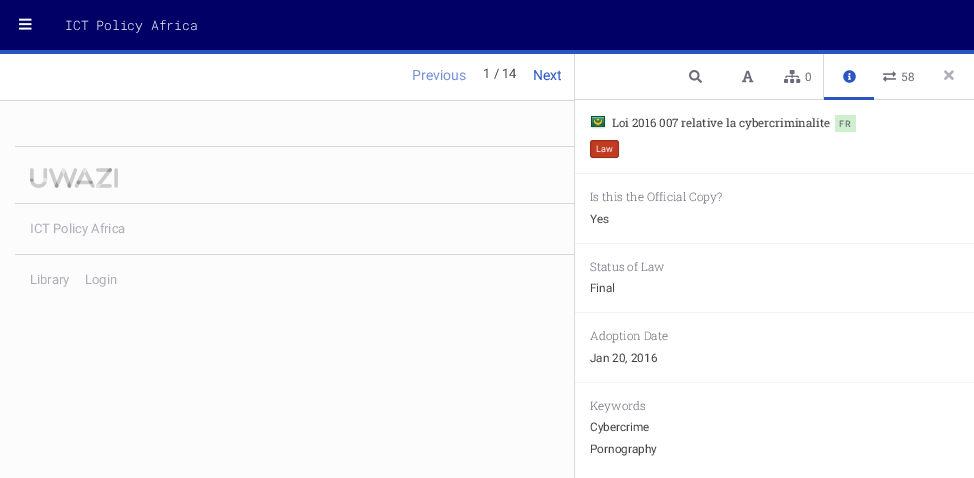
%!PS-Adobe-3.0
%%BoundingBox: 0 0 974 478
%%LanguageLevel: 3
%%Pages: 1
%%EndComments
%%BeginProlog
/setink { 3 { 255 div 3 1 roll } repeat setrgbcolor } def
/usefont { [ exch dup neg 0 0 3 -1 roll 0 0 ] selectfont } def
/drawtext { setink usefont moveto show } def
/fillbox { setink rectfill } def
/setalpha { dup .setfillconstantalpha .setstrokeconstantalpha } def
/rrect { 5 dict begin { /r /h /w /y /x } { exch def } forall
  x r add y moveto x w add y 2 copy h add r arct x w add y h add x 1 index r arct
  x y h add x y r arct x y 2 copy exch w add exch r arct closepath end } def
/drawimage { 5 dict begin { /h /w /y /x /name } { exch def } forall
  gsave x y translate w h scale
  w h 8 [w 0 0 h 0 0] name (r) file false 3 colorimage grestore end } def
%%EndProlog
%%BeginSetup
<< /PageSize [974 478] /PageUsesTransparency true >> setpagedevice
%%EndSetup
%%Page: 1 1
0 .pushpdf14devicefilter
0 478 translate 1 -1 scale
4 setmiterlimit
0 0 974 478 252 252 252 fillbox
575 54 399 424 255 255 255 fillbox
823 49 1 50 215 215 220 fillbox
0 0 974 50 1 0 102 fillbox
(assets/img1.rgb) 19 18 13 12 drawimage
(ICT Policy Africa) 65 30 /RobotoMono-Light 13 255 255 255 drawtext
15 146 559 1 215 215 220 fillbox
(assets/img2.rgb) 30 168 88 20 drawimage
15 203 559 1 215 215 220 fillbox
(ICT Policy Africa) 30 233 /Roboto-Regular 13 174 174 184 drawtext
15 254 559 1 215 215 220 fillbox
(Library) 30 284 /Roboto-Regular 13 174 174 184 drawtext
(Login) 85 284 /Roboto-Regular 13 174 174 184 drawtext
0 54 574 46 255 255 255 fillbox
0 100 574 1 215 215 220 fillbox
(Previous) 412 80 /Roboto-Regular 14 117 145 215 drawtext
(1 / 14) 483 78 /Roboto-Regular 13 68 68 68 drawtext
(Next) 533 80 /Roboto-Regular 14 43 86 193 drawtext
574 50 1 428 215 215 220 fillbox
575 99 399 1 215 215 220 fillbox
(assets/img3.rgb) 689 70 13 13 drawimage
(assets/img4.rgb) 742 70 12 13 drawimage
(assets/img5.rgb) 784 70 17 13 drawimage
(0) 805 81 /Roboto-Regular 11.75 108 108 123 drawtext
(assets/img6.rgb) 843 70 13 13 drawimage
824 97 50 3 43 86 193 fillbox
(assets/img7.rgb) 883 71 13 11 drawimage
(58) 901 81 /Roboto-Regular 11.75 108 108 123 drawtext
(assets/img8.rgb) 944 70 10 10 drawimage
(assets/img9.rgb) 590 116 16 13 drawimage
(Loi 2016 007 relative la cybercriminalite) 612 127 /RobotoSlab-Regular 11.6 68 68 68 drawtext
835 115 21 17 207 240 207 fillbox
/Roboto-Medium 9 usefont
108 108 123 setink
839 127 moveto 1 0 (FR) ashow
192 59 34 setink
590 140 29 18 3 rrect fill
0.2 setalpha
0 0 0 setink
590.5 140.5 28 17 2.5 rrect stroke
1 setalpha
(Law) 596 152 /Roboto-Regular 9 255 255 255 drawtext
575 173 399 1 242 242 244 fillbox
(Is this the Official Copy?) 590 201 /RobotoSlab-Light 11.75 108 108 123 drawtext
(Yes) 590 223 /Roboto-Regular 11.75 68 68 68 drawtext
575 243 399 1 242 242 244 fillbox
(Status of Law) 590 271 /RobotoSlab-Light 11.75 108 108 123 drawtext
(Final) 590 292 /Roboto-Regular 11.75 68 68 68 drawtext
575 312 399 1 242 242 244 fillbox
(Adoption Date) 590 340 /RobotoSlab-Light 11.75 108 108 123 drawtext
(Jan 20, 2016) 590 362 /Roboto-Regular 11.75 68 68 68 drawtext
575 382 399 1 242 242 244 fillbox
(Keywords) 590 410 /RobotoSlab-Light 11.75 108 108 123 drawtext
(Cybercrime) 590 431 /Roboto-Regular 11.75 68 68 68 drawtext
(Pornography) 590 453 /Roboto-Regular 11.75 68 68 68 drawtext
0 50 974 4 43 86 193 fillbox
.poppdf14devicefilter showpage
%%EOF
